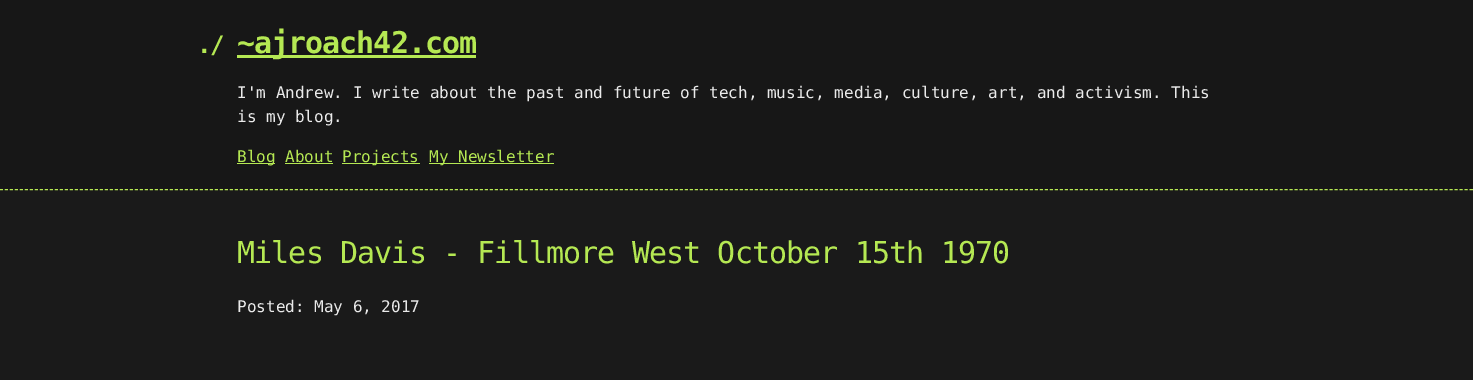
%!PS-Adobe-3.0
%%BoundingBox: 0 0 1473 380
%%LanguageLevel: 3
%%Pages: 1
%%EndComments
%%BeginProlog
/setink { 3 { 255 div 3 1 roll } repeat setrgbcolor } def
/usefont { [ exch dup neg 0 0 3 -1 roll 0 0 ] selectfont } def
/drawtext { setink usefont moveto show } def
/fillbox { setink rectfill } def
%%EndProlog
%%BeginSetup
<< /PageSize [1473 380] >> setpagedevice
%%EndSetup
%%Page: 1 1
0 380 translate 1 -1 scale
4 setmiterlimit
0 0 1473 380 26 26 26 fillbox
0 0 1473 190 23 23 23 fillbox
181 232 83 setink
[3 2] 0 setdash
0 189.5 moveto 1473 189.5 lineto stroke
/DejaVuSansMono-Bold 24 usefont
197 53 moveto -1 0 (./) ashow
237 55 239 3 181 232 83 fillbox
/DejaVuSansMono-Bold 30 usefont
237 53 moveto -1 0 (~ajroach42.com) ashow
(I'm Andrew. I write about the past and future of tech, music, media, culture, art, and activism. This) 237 98 /DejaVuSansMono-Regular 16 234 234 234 drawtext
(is my blog.) 237 122 /DejaVuSansMono-Regular 16 234 234 234 drawtext
237 163 38 1 181 232 83 fillbox
(Blog About) 237 162 /DejaVuSansMono-Regular 16 181 232 83 drawtext
342 163 78 1 181 232 83 fillbox
(Projects) 342 162 /DejaVuSansMono-Regular 16 181 232 83 drawtext
429 163 125 1 181 232 83 fillbox
(My Newsletter) 429 162 /DejaVuSansMono-Regular 16 181 232 83 drawtext
285 163 48 1 181 232 83 fillbox
/DejaVuSansMono-Regular 30 usefont
237 263 moveto -0.9 0 (Miles Davis - Fillmore West October 15th 1970) ashow
(Posted: May 6, 2017) 237 312 /DejaVuSansMono-Regular 16 234 234 234 drawtext
showpage
%%EOF
